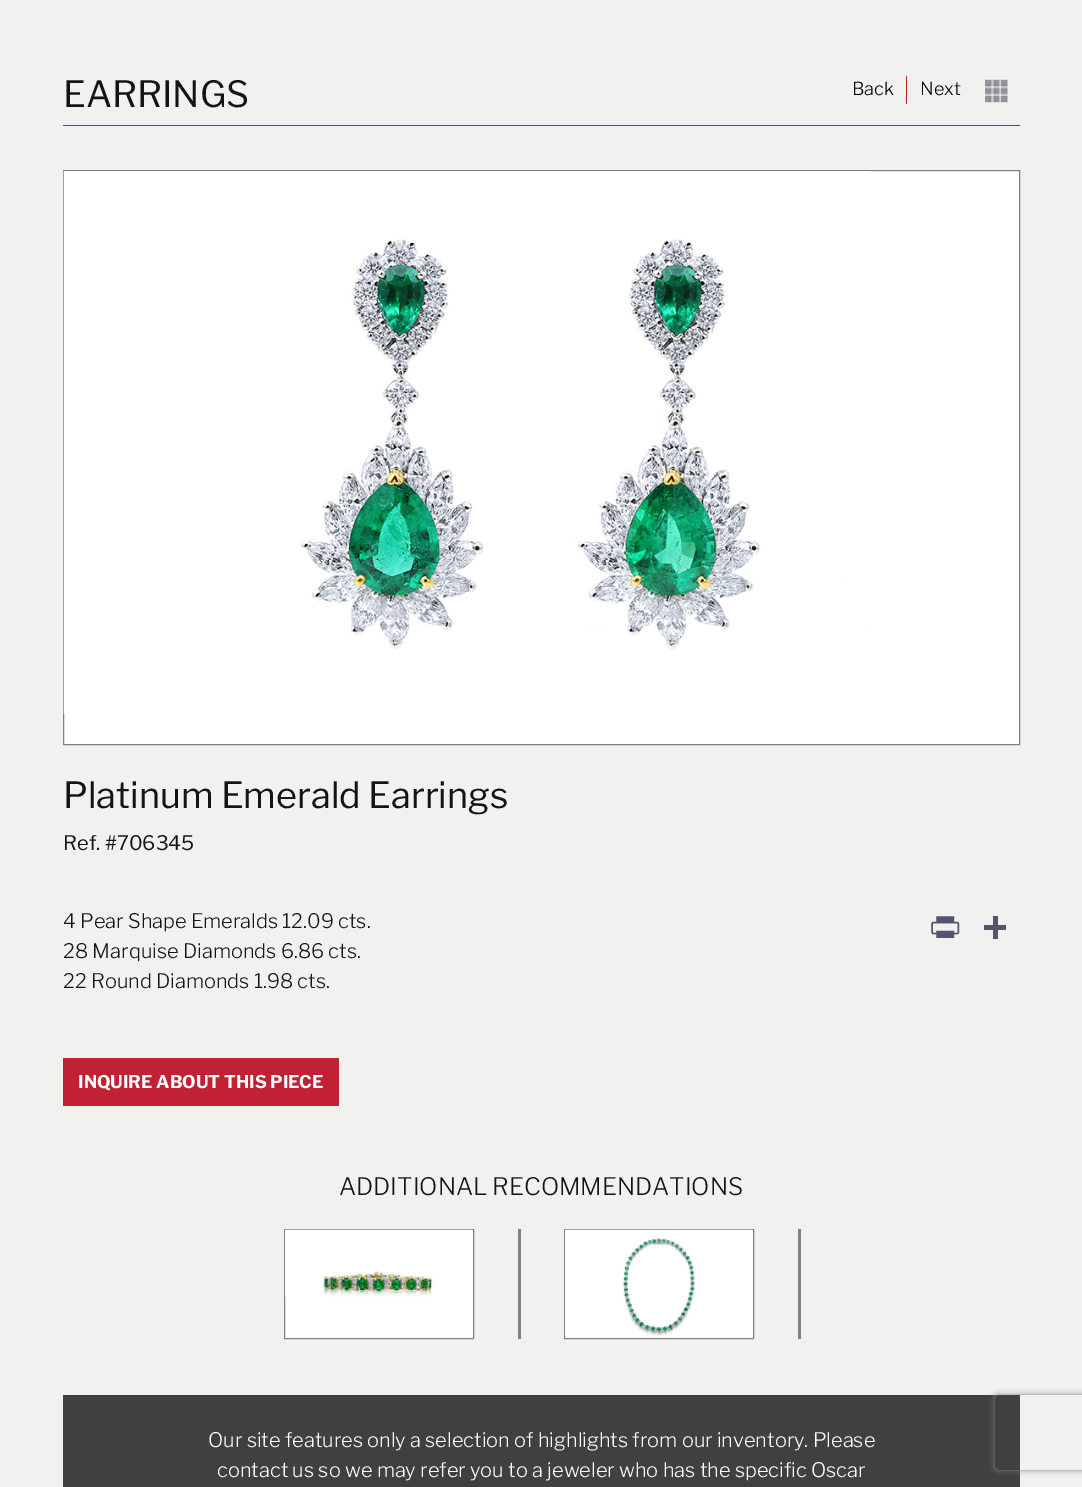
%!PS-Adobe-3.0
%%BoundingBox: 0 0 1082 1487
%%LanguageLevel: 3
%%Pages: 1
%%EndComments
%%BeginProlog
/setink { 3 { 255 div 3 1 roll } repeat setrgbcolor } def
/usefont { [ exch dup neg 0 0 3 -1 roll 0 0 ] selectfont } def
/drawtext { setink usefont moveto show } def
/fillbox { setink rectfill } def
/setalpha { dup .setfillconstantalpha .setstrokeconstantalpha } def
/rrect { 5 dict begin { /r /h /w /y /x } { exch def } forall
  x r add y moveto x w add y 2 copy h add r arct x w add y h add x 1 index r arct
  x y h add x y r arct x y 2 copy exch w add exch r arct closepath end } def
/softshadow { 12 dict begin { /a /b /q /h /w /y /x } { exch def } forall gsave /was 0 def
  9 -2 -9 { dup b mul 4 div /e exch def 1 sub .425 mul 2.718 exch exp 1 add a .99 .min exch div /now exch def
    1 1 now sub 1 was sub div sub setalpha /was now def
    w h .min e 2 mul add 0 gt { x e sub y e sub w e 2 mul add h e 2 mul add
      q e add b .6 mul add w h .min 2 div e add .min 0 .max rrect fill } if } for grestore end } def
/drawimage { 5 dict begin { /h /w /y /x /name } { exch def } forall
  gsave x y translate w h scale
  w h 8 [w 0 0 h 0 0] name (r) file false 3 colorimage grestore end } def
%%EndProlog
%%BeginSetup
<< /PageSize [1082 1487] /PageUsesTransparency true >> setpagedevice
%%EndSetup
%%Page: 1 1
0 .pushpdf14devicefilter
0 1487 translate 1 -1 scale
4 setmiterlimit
0 0 1082 1487 241 242 240 fillbox
63 125 957 1 194 32 51 fillbox
(EARRINGS) 63 107 /LibreFranklin-Regular 36 20 20 18 drawtext
906 76 1 28 194 32 51 fillbox
(Back) 852 95 /LibreFranklin-Light 18 0 0 0 drawtext
(Next) 920 95 /LibreFranklin-Light 18 0 0 0 drawtext
(assets/img1.rgb) 985 79 23 24 drawimage
255 255 255 setink
63.5 170.5 moveto 1019.5 170.5 lineto 1019.5 744.5 lineto 63.5 744.5 lineto closepath gsave fill grestore
128 128 128 setink
stroke
(assets/img2.rgb) 63 171 808 543 drawimage
(Platinum Emerald Earrings) 63 808 /LibreFranklin-Regular 36 20 20 18 drawtext
(Ref. #706345) 63 850 /LibreFranklin-Regular 20 20 20 18 drawtext
(4 Pear Shape Emeralds 12.09 cts.) 63 928 /LibreFranklin-Light 20 20 20 18 drawtext
(28 Marquise Diamonds 6.86 cts.) 63 958 /LibreFranklin-Light 20 20 20 18 drawtext
(22 Round Diamonds 1.98 cts.) 63 988 /LibreFranklin-Light 20 20 20 18 drawtext
(assets/img3.rgb) 931 916 29 22 drawimage
993 916 5 23 82 85 109 fillbox
984 925 22 5 82 85 109 fillbox
63 1058 276 48 194 32 51 fillbox
(INQUIRE ABOUT THIS PIECE) 78 1088 /LibreFranklin-Bold 17.5 255 255 255 drawtext
(ADDITIONAL RECOMMENDATIONS) 339 1195 /LibreFranklin-Light 24 20 20 18 drawtext
255 255 255 setink
284.5 1229.5 moveto 473.5 1229.5 lineto 473.5 1338.5 lineto 284.5 1338.5 lineto closepath gsave fill grestore
128 128 128 setink
stroke
(assets/img4.rgb) 285 1229 188 68 drawimage
518 1229 3 110 128 128 128 fillbox
255 255 255 setink
564.5 1229.5 moveto 753.5 1229.5 lineto 753.5 1338.5 lineto 564.5 1338.5 lineto closepath gsave fill grestore
128 128 128 setink
stroke
(assets/img5.rgb) 565 1229 188 107 drawimage
798 1229 3 110 128 128 128 fillbox
63 1395 957 92 64 64 65 fillbox
(Our site features only a selection of highlights from our inventory. Please) 208 1447 /LibreFranklin-Light 20 255 255 255 drawtext
(contact us so we may refer you to a jeweler who has the specific Oscar) 217 1477 /LibreFranklin-Light 20 255 255 255 drawtext
gsave
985 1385 moveto 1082 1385 lineto 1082 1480 lineto 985 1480 lineto closepath 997.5 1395 moveto 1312.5 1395 lineto 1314 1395 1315 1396 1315 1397.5 curveto 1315 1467.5 lineto 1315 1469 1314 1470 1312.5 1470 curveto 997.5 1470 lineto 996 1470 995 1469 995 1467.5 curveto 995 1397.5 lineto 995 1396 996 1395 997.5 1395 curveto closepath eoclip newpath
128 128 128 setink
995 1395 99 75 2.5 3 1 softshadow
grestore
.poppdf14devicefilter showpage
%%EOF
